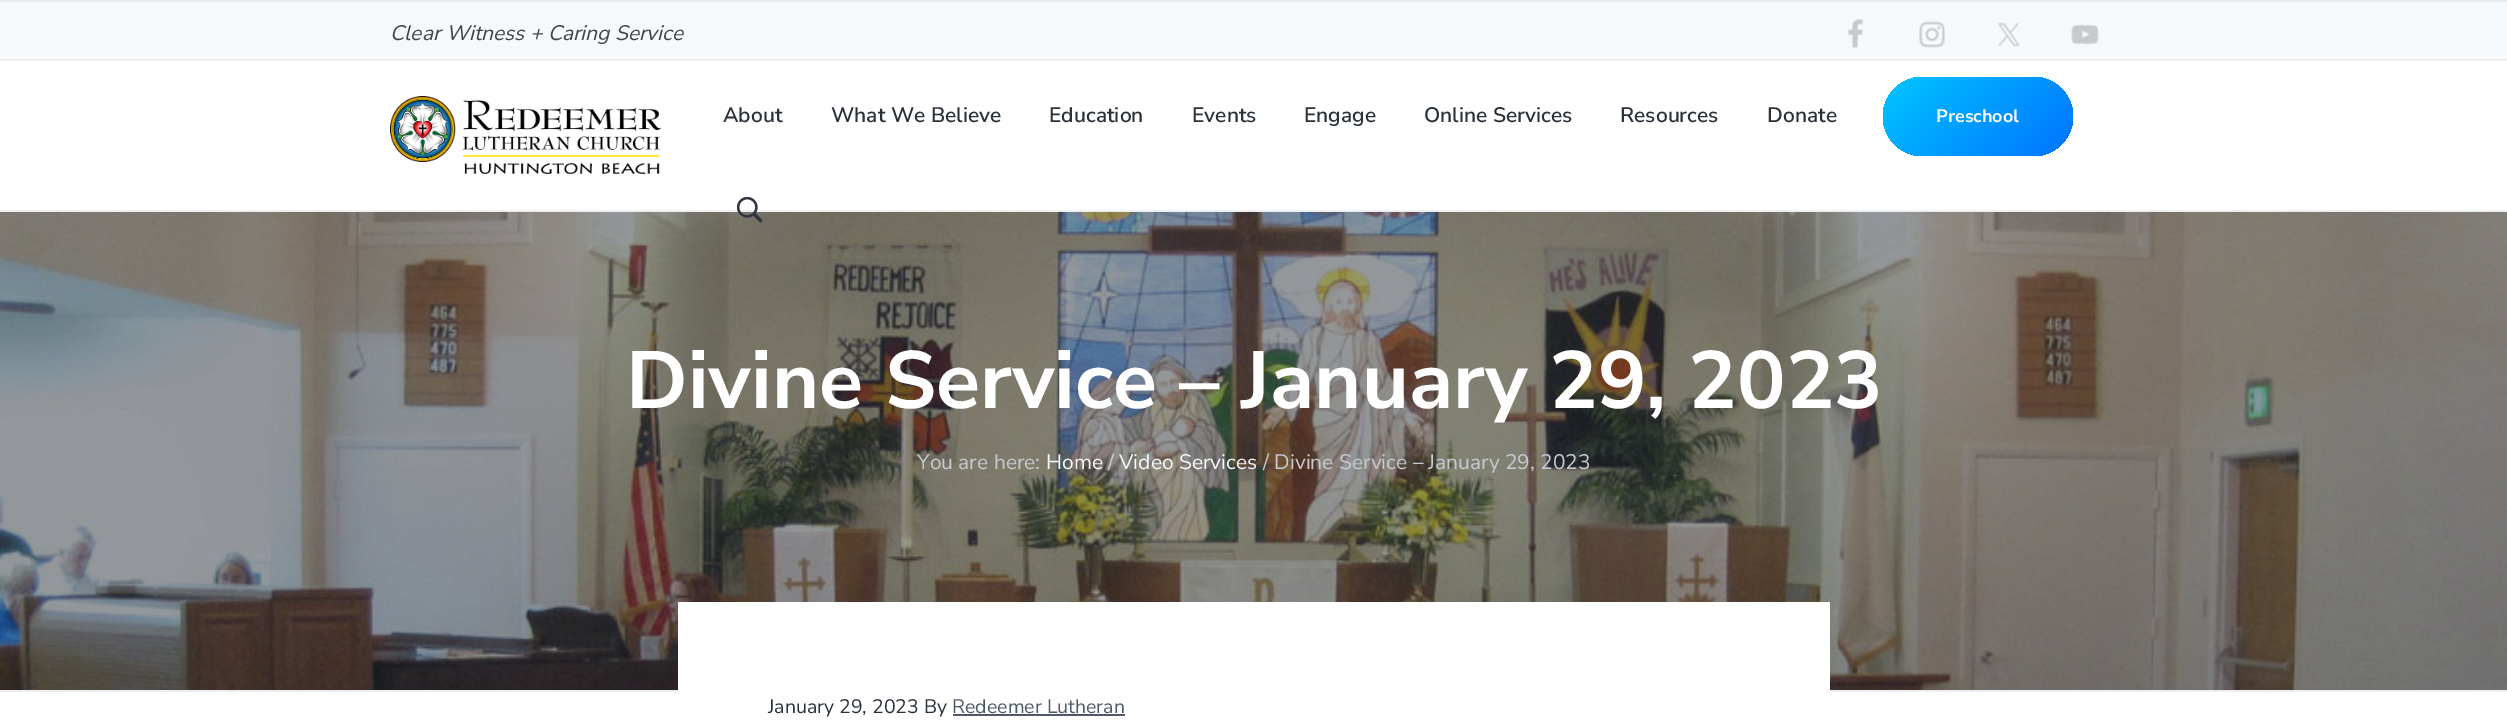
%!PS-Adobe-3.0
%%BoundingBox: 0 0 2507 722
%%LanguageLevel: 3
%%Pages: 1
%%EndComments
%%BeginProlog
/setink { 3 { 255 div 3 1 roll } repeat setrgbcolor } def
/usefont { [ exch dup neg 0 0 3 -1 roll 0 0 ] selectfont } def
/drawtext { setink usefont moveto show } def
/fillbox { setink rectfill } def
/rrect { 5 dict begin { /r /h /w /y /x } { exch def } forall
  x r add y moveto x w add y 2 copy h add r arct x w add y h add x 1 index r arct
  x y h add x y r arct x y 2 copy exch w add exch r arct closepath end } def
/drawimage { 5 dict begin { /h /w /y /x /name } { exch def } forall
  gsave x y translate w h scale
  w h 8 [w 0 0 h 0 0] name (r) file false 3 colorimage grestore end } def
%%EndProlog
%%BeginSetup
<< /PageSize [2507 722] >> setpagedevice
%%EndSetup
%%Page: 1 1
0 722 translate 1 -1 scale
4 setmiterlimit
0 0 2507 722 255 255 255 fillbox
0 60 2507 1 238 239 240 fillbox
0 210 2507 2 238 239 240 fillbox
0 2 2507 57 246 248 250 fillbox
0 59 2507 1 232 234 237 fillbox
0 0 2507 2 232 234 237 fillbox
(Clear Witness + Caring Service) 390 40 /NunitoSans-Italic 21 63 69 76 drawtext
(assets/img1.rgb) 1847 19 17 29 drawimage
(assets/img2.rgb) 1919 21 26 27 drawimage
(assets/img3.rgb) 1998 22 22 25 drawimage
(assets/img4.rgb) 2071 24 28 21 drawimage
(assets/img5.rgb) 390 96 272 78 drawimage
(About) 723 122 /NunitoSans-SemiBold 21 42 49 57 drawtext
(What We Believe) 831 122 /NunitoSans-SemiBold 21 42 49 57 drawtext
(Education) 1049 122 /NunitoSans-SemiBold 21 42 49 57 drawtext
(Events) 1192 122 /NunitoSans-SemiBold 21 42 49 57 drawtext
(Engage) 1304 122 /NunitoSans-SemiBold 21 42 49 57 drawtext
(Online Services) 1424 122 /NunitoSans-SemiBold 21 42 49 57 drawtext
(Resources) 1620 122 /NunitoSans-SemiBold 21 42 49 57 drawtext
(Donate) 1767 122 /NunitoSans-SemiBold 21 42 49 57 drawtext
gsave 1883 77 190 79 39.5 rrect clip newpath
<< /ShadingType 2 /ColorSpace /DeviceRGB /Coords [1910 49 2045 184] /Extend [true true] /Function << /FunctionType 2 /Domain [0 1] /C0 [0 0.776 1] /C1 [0 0.447 1] /N 1 >> >> shfill grestore
(Preschool) 1936 122 /NunitoSans-Bold 18 255 255 255 drawtext
(assets/img7.rgb) 0 212 2507 478 drawimage
(assets/img6.rgb) 737 197 25 26 drawimage
0 690 2507 2 236 238 241 fillbox
(Divine Service – January 29, 2023) 626 408 /NunitoSans-Bold 81 255 255 255 drawtext
(You are here:) 917 469 /NunitoSans-Regular 21 198 202 206 drawtext
(Home) 1046 469 /NunitoSans-Regular 21 246 248 250 drawtext
(/) 1108 469 /NunitoSans-Regular 21 198 202 206 drawtext
(Video Services) 1119 469 /NunitoSans-Regular 21 246 248 250 drawtext
(/ Divine Service – January 29, 2023) 1263 469 /NunitoSans-Regular 21 198 202 206 drawtext
255 255 255 setink
678 602 1152 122 1.5 rrect fill
(January 29, 2023 By) 768 713 /NunitoSans-Regular 19.5 42 49 57 drawtext
(Redeemer Lutheran) 952 713 /NunitoSans-Regular 19.5 77 89 104 drawtext
953 714 172 2 77 89 104 fillbox
showpage
%%EOF
